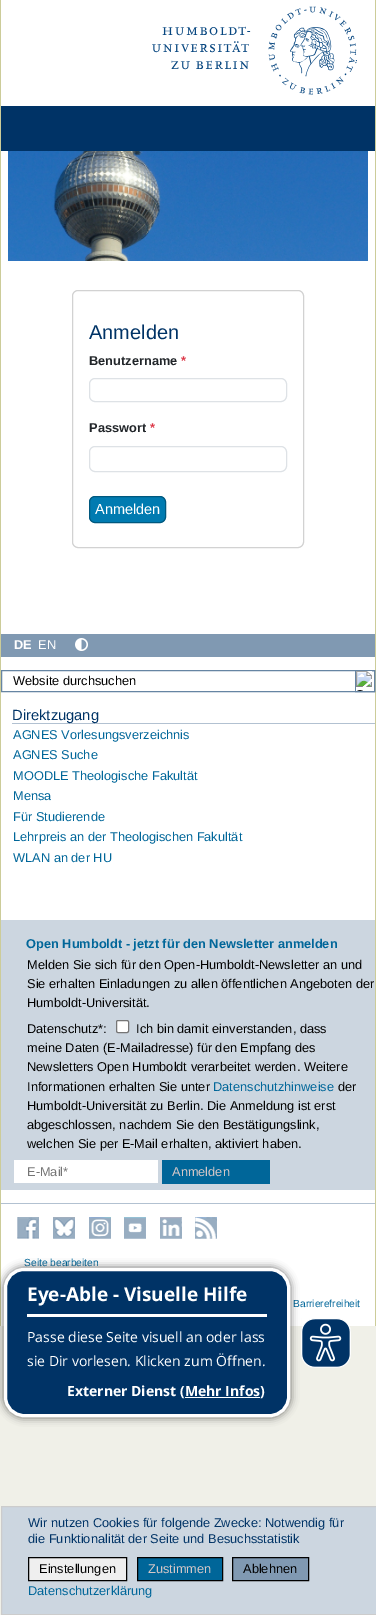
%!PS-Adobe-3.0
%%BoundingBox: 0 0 376 1615
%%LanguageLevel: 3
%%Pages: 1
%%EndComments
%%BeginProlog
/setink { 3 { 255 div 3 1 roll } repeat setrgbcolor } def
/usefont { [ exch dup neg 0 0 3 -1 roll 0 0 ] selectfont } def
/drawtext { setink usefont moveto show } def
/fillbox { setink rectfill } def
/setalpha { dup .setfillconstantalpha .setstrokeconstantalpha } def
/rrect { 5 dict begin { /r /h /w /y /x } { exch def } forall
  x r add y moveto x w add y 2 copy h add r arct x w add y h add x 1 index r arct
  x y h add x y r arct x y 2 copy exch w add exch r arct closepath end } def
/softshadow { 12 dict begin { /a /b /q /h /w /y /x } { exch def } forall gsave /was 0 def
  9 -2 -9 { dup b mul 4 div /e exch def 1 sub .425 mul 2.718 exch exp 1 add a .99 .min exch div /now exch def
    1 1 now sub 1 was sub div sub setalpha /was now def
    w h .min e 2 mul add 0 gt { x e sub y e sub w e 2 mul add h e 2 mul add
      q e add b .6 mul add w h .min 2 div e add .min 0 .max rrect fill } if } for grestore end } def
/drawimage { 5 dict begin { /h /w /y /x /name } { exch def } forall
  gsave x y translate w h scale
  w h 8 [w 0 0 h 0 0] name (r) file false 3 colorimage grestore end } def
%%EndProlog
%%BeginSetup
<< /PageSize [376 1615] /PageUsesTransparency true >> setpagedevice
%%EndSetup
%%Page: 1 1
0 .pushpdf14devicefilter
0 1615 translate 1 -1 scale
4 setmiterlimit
0 0 376 1615 240 240 232 fillbox
1 0 374 1326 255 255 255 fillbox
(assets/img1.rgb) 152 6 205 89 drawimage
1 106 374 45 0 51 102 fillbox
(assets/img2.rgb) 8 151 360 110 drawimage
375 0 1 1326 204 204 153 fillbox
0 0 1 1326 204 204 153 fillbox
210 210 210 setink
72.5 290.5 231 257 5.5 rrect stroke
(Anmelden) 89 339 /LiberationSans-Regular 20 0 51 102 drawtext
(Benutzername) 89 365 /LiberationSans-Bold 12.8 33 37 41 drawtext
(*) 181 365 /LiberationSans-Bold 12.8 220 53 69 drawtext
222 226 230 setink
89.5 378.5 197 23 5.5 rrect stroke
(Passwort) 89 432 /LiberationSans-Bold 12.8 33 37 41 drawtext
(*) 150 432 /LiberationSans-Bold 12.8 220 53 69 drawtext
222 226 230 setink
89.5 446.5 197 25 5.5 rrect stroke
0 123 177 setink
89.5 496.5 76 26 5.5 rrect gsave fill grestore
0 88 126 setink
stroke
(Anmelden) 95 514 /LiberationSans-Regular 14.5 255 255 255 drawtext
1 634 374 23 128 153 178 fillbox
(DE) 14 649 /LiberationSans-Bold 12.8 255 255 255 drawtext
(EN) 38 649 /LiberationSans-Regular 12.8 255 255 255 drawtext
(assets/img3.rgb) 75 638 13 13 drawimage
102 133 163 setink
1.5 670.5 373 21 rectstroke
(Website durchsuchen) 13 685 /LiberationSans-Regular 12.8 0 0 0 drawtext
102 133 163 setink
355.5 670.5 19 21 rectstroke
(assets/img4.rgb) 356 671 16 20 drawimage
12 723 363 1 178 193 209 fillbox
(Direktzugang) 12 720 /LiberationSans-Regular 14.75 0 51 102 drawtext
(AGNES Vorlesungsverzeichnis) 13 739 /LiberationSans-Regular 12.8 0 102 153 drawtext
(AGNES Suche) 13 759 /LiberationSans-Regular 12.8 0 102 153 drawtext
(MOODLE Theologische Fakultät) 13 780 /LiberationSans-Regular 12.8 0 102 153 drawtext
(Mensa) 13 800 /LiberationSans-Regular 12.8 0 102 153 drawtext
(Für Studierende) 13 821 /LiberationSans-Regular 12.8 0 102 153 drawtext
(Lehrpreis an der Theologischen Fakultät) 13 841 /LiberationSans-Regular 12.8 0 102 153 drawtext
(WLAN an der HU) 13 862 /LiberationSans-Regular 12.8 0 102 153 drawtext
1 920 374 270 204 214 224 fillbox
(Open Humboldt - jetzt für den Newsletter anmelden) 26 948 /LiberationSans-Bold 12.8 0 102 153 drawtext
(Melden Sie sich für den Open-Humboldt-Newsletter an und) 27 969 /LiberationSans-Regular 12.8 0 0 0 drawtext
(Sie erhalten Einladungen zu allen öffentlichen Angeboten der) 27 988 /LiberationSans-Regular 12.8 0 0 0 drawtext
(Humboldt-Universität.) 27 1007 /LiberationSans-Regular 12.8 0 0 0 drawtext
(Datenschutz*:) 27 1033 /LiberationSans-Regular 12.8 0 0 0 drawtext
255 255 255 setink
116.5 1020.5 12 12 1.5 rrect gsave fill grestore
118 118 118 setink
stroke
(Ich bin damit einverstanden, dass) 136 1033 /LiberationSans-Regular 12.8 0 0 0 drawtext
(meine Daten \(E-Mailadresse\) für den Empfang des) 27 1052 /LiberationSans-Regular 12.8 0 0 0 drawtext
(Newsletters Open Humboldt verarbeitet werden. Weitere) 27 1071 /LiberationSans-Regular 12.8 0 0 0 drawtext
(Informationen erhalten Sie unter) 27 1091 /LiberationSans-Regular 12.8 0 0 0 drawtext
(Datenschutzhinweise) 213 1091 /LiberationSans-Regular 12.8 0 102 153 drawtext
(der) 338 1091 /LiberationSans-Regular 12.8 0 0 0 drawtext
(Humboldt-Universität zu Berlin. Die Anmeldung ist erst) 27 1110 /LiberationSans-Regular 12.8 0 0 0 drawtext
(abgeschlossen, nachdem Sie den Bestätigungslink,) 27 1129 /LiberationSans-Regular 12.8 0 0 0 drawtext
(welchen Sie per E-Mail erhalten, aktiviert haben.) 27 1148 /LiberationSans-Regular 12.8 0 0 0 drawtext
14 1160 144 23 255 255 255 fillbox
(E-Mail*) 27 1176 /LiberationSans-Regular 12.8 117 117 117 drawtext
162 1160 108 24 0 102 153 fillbox
(Anmelden) 172 1176 /LiberationSans-Regular 12.8 213 199 199 drawtext
1 1203 374 1 178 193 209 fillbox
(assets/img5.rgb) 17 1217 22 22 drawimage
(assets/img6.rgb) 53 1217 22 22 drawimage
(assets/img7.rgb) 89 1217 22 22 drawimage
(assets/img8.rgb) 124 1217 22 22 drawimage
(assets/img9.rgb) 160 1217 22 22 drawimage
(assets/img10.rgb) 195 1217 22 22 drawimage
(Seite bearbeiten) 24 1266 /LiberationSans-Regular 10.25 0 102 153 drawtext
(Barrierefreiheit) 293 1307 /LiberationSans-Regular 10.25 0 102 153 drawtext
204 214 224 setink
1.5 1506.5 moveto 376.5 1506.5 lineto 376.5 1614.5 lineto 1.5 1614.5 lineto closepath gsave fill grestore
204 204 204 setink
stroke
(Wir nutzen Cookies für folgende Zwecke: Notwendig für) 28 1527 /LiberationSans-Regular 12.8 0 51 102 drawtext
(die Funktionalität der Seite und Besuchsstatistik) 28 1543 /LiberationSans-Regular 12.8 0 51 102 drawtext
239 239 239 setink
28.5 1557.5 moveto 126.5 1557.5 lineto 126.5 1580.5 lineto 28.5 1580.5 lineto closepath gsave fill grestore
0 0 0 setink
stroke
(Einstellungen) 39 1573 /LiberationSans-Regular 12.8 0 0 0 drawtext
0 102 153 setink
137.5 1557.5 moveto 222.5 1557.5 lineto 222.5 1580.5 lineto 137.5 1580.5 lineto closepath gsave fill grestore
0 0 0 setink
stroke
(Zustimmen) 148 1573 /LiberationSans-Regular 12.8 213 199 199 drawtext
128 153 178 setink
232.5 1557.5 moveto 308.5 1557.5 lineto 308.5 1580.5 lineto 232.5 1580.5 lineto closepath gsave fill grestore
0 0 0 setink
stroke
(Ablehnen) 243 1573 /LiberationSans-Regular 12.8 0 0 0 drawtext
(Datenschutzerklärung) 28 1595 /LiberationSans-Regular 12.8 0 102 153 drawtext
0 0 0 setink
3 1267 288 151 21 4 0.5 softshadow
0 51 102 setink
5.5 1269.5 283 146 18.5 rrect gsave fill grestore
255 255 255 setink
3 setlinewidth
stroke
27 1314 240 3 255 255 255 fillbox
(Eye-Able - Visuelle Hilfe) 27 1301 /OpenSans-Bold 19 255 255 255 drawtext
(Passe diese Seite visuell an oder lass) 27 1342 /OpenSans-Regular 14 255 255 255 drawtext
(sie Dir vorlesen. Klicken zum Öffnen.) 27 1366 /OpenSans-Regular 14 255 255 255 drawtext
(Externer Dienst \(Mehr Infos\)) 67 1396 /OpenSans-Bold 14 255 255 255 drawtext
185 1397 75 1 255 255 255 fillbox
(assets/img11.rgb) 301 1318 50 50 drawimage
.poppdf14devicefilter showpage
%%EOF
